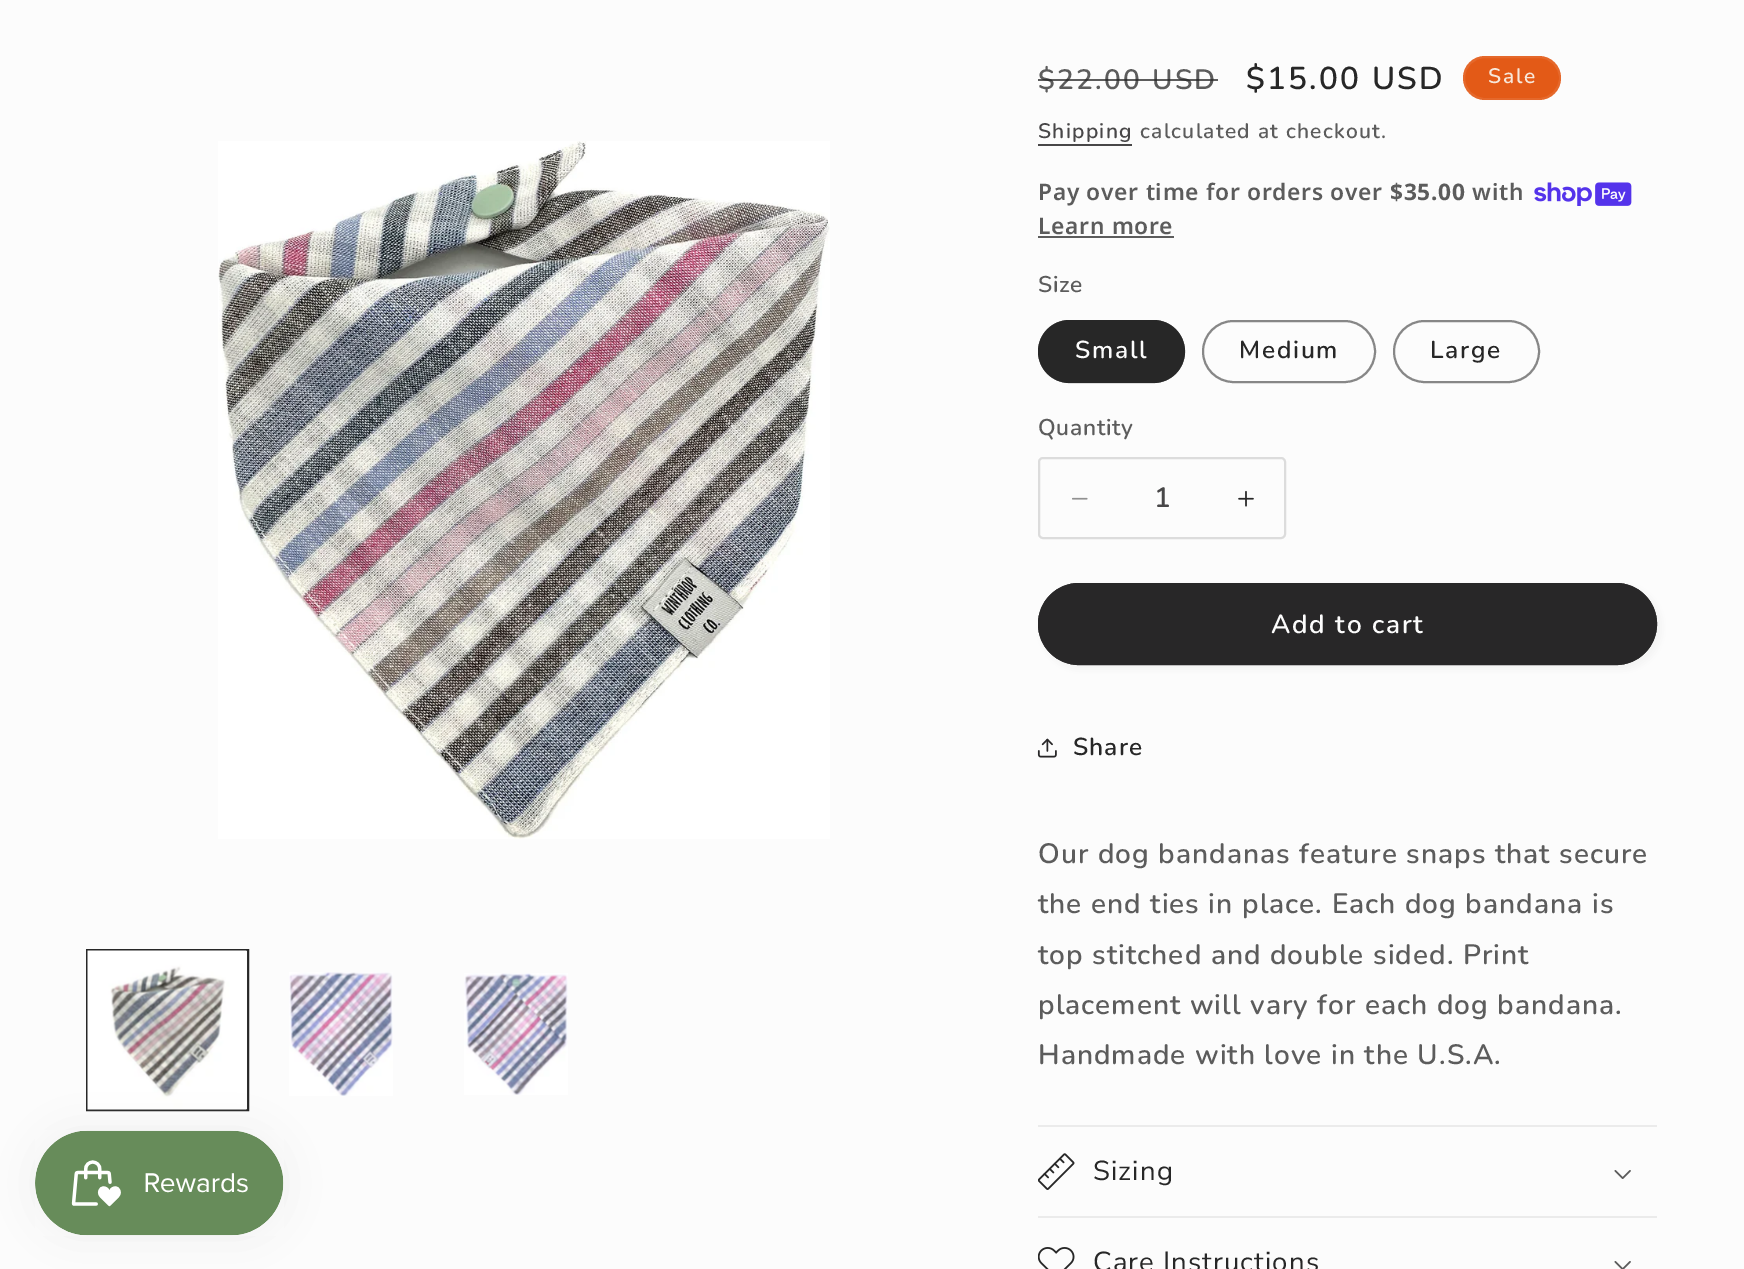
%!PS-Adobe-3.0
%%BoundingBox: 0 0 1744 1269
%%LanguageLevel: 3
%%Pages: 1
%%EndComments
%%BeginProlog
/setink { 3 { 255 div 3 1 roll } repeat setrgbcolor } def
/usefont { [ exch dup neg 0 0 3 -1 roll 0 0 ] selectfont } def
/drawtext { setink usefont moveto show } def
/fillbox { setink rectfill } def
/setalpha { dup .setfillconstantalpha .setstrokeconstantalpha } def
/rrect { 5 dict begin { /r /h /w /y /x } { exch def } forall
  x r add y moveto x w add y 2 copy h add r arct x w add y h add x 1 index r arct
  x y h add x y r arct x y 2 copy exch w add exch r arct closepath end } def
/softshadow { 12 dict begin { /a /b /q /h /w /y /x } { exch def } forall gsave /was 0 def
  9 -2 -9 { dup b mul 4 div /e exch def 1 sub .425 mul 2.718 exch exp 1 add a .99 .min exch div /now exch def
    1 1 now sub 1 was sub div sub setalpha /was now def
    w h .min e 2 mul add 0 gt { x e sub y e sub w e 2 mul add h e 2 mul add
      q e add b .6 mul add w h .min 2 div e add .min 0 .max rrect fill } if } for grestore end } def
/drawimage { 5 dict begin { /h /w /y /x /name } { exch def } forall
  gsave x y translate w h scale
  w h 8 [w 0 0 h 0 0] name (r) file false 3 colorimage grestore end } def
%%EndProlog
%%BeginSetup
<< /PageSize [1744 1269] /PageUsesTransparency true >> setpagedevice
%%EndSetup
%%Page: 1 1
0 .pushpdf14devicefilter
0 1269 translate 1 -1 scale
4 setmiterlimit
0 0 1744 1269 252 252 252 fillbox
39 39 39 setink
2 setlinewidth
87 950 161 160 rectstroke
(assets/img3.rgb) 87 950 161 161 drawimage
(assets/img4.rgb) 289 972 104 124 drawimage
0 0 0 setink
35 1131 249 105 52.5 22 0.05 softshadow
(assets/img1.rgb) 35 1130 249 106 drawimage
(assets/img2.rgb) 218 141 612 698 drawimage
(assets/img5.rgb) 464 973 104 122 drawimage
/Nunito-SemiBold 28 usefont
92 92 92 setink
1038 89 moveto 2.25 0 ($22.00 USD) ashow
0.75 setalpha
1038 79 180 2 39 39 39 fillbox
/Nunito-SemiBold 31.5 usefont
1 setalpha
1246 89 moveto 2.25 0 ($15.00 USD) ashow
227 90 23 setink
1463 56 98 44 22 rrect fill
0.1 setalpha
247 231 218 setink
1464 57 96 42 21 rrect stroke
/Nunito-SemiBold 21 usefont
1 setalpha
1488 83 moveto 1.75 0 (Sale) ashow
72 71 72 setink
1038 138 moveto 1.25 0 (Shipping) ashow
1038 144 94 2 72 71 72 fillbox
92 92 92 setink
1140 138 moveto 1.25 0 (calculated at checkout.) ashow
/NotoSans-SemiBold 22.75 usefont
1038 200 moveto 0.7 0 (Pay over time for orders over) ashow
/NotoSans-Bold 22.75 usefont
1390 200 moveto 0.7 0 ($35.00) ashow
/NotoSans-SemiBold 22.75 usefont
1472 200 moveto 0.7 0 (with) ashow
(assets/img6.rgb) 1534 182 98 24 drawimage
1038 234 moveto 0.7 0 (Learn more) ashow
1038 236 136 2 92 92 92 fillbox
/Nunito-SemiBold 22.75 usefont
1038 292 moveto 0.7 0 (Size) ashow
39 39 39 setink
1038 320 147 63 31.5 rrect fill
0.55 setalpha
1039 321 145 61 30.5 rrect stroke
/Nunito-SemiBold 24.5 usefont
1 setalpha
252 252 252 setink
1075 358 moveto 1.75 0 (Small) ashow
135 135 135 setink
1203 321 172 61 30.5 rrect stroke
39 39 39 setink
1239 358 moveto 1.75 0 (Medium) ashow
135 135 135 setink
1394 321 145 61 30.5 rrect stroke
39 39 39 setink
1430 358 moveto 1.75 0 (Large) ashow
/Nunito-SemiBold 22.75 usefont
92 92 92 setink
1038 435 moveto 0.7 0 (Quantity) ashow
(assets/img7.rgb) 1072 497 16 3 drawimage
(assets/img8.rgb) 1238 490 16 17 drawimage
220 220 220 setink
1039 458 246 80 4 rrect stroke
(1) 1154 507 /Nunito-SemiBold 28 72 71 72 drawtext
151 151 151 setink
1041 586 620 83 41.5 4.5 0.1 softshadow
40 39 40 setink
1038 583 619 82 41 rrect fill
1039 584 617 80 40 rrect stroke
/Nunito-SemiBold 26.25 usefont
252 252 252 setink
1271 633 moveto 1.75 0 (Add to cart) ashow
(assets/img9.rgb) 1037 738 20 20 drawimage
/Nunito-SemiBold 24.5 usefont
39 39 39 setink
1073 755 moveto 1.05 0 (Share) ashow
/Nunito-SemiBold 28 usefont
92 92 92 setink
1038 863 moveto 1.05 0 (Our dog bandanas feature snaps that secure) ashow
1038 913 moveto 1.05 0 (the end ties in place. Each dog bandana is) ashow
1038 964 moveto 1.05 0 (top stitched and double sided. Print) ashow
1038 1014 moveto 1.05 0 (placement will vary for each dog bandana.) ashow
1038 1064 moveto 1.05 0 (Handmade with love in the U.S.A.) ashow
1038 1125 619 2 235 235 235 fillbox
1038 1216 619 2 235 235 235 fillbox
(assets/img10.rgb) 1038 1153 37 37 drawimage
/NunitoSans-Regular 27.5 usefont
39 39 39 setink
1093 1180 moveto 1.1 0 (Sizing) ashow
(assets/img11.rgb) 1614 1170 17 9 drawimage
(assets/img12.rgb) 1038 1247 37 22 drawimage
1093 1271 moveto 1.1 0 (Care Instructions) ashow
(assets/img13.rgb) 1614 1261 17 8 drawimage
.poppdf14devicefilter showpage
%%EOF
